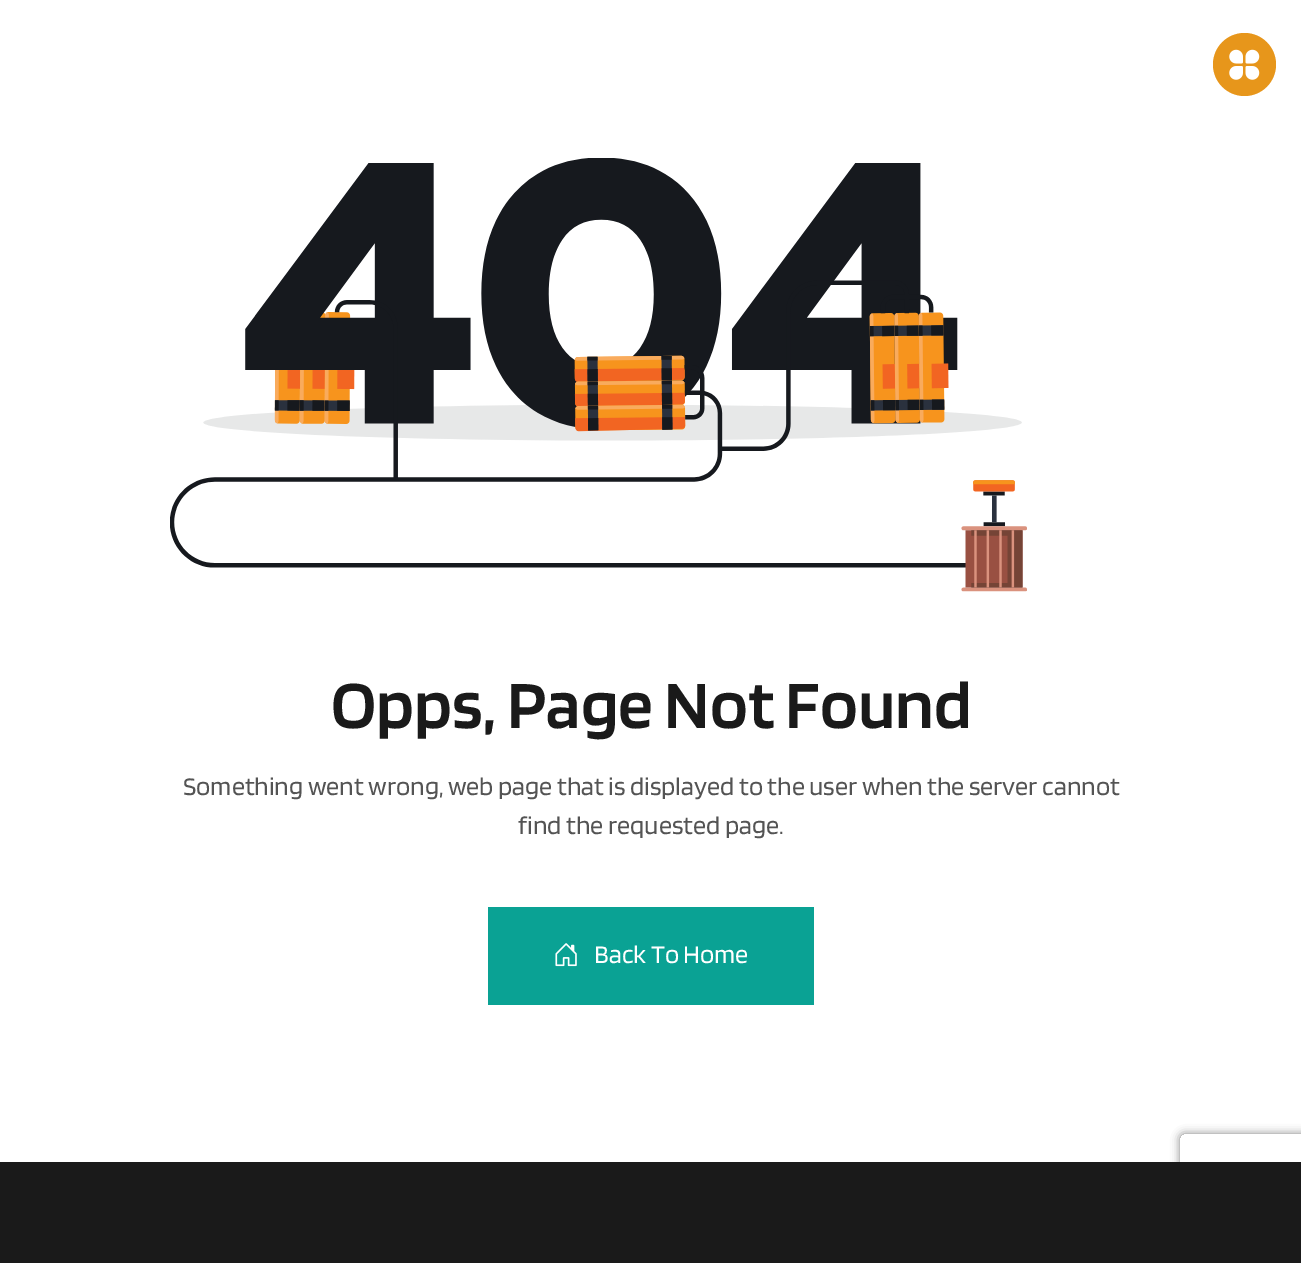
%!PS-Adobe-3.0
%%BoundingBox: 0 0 1301 1263
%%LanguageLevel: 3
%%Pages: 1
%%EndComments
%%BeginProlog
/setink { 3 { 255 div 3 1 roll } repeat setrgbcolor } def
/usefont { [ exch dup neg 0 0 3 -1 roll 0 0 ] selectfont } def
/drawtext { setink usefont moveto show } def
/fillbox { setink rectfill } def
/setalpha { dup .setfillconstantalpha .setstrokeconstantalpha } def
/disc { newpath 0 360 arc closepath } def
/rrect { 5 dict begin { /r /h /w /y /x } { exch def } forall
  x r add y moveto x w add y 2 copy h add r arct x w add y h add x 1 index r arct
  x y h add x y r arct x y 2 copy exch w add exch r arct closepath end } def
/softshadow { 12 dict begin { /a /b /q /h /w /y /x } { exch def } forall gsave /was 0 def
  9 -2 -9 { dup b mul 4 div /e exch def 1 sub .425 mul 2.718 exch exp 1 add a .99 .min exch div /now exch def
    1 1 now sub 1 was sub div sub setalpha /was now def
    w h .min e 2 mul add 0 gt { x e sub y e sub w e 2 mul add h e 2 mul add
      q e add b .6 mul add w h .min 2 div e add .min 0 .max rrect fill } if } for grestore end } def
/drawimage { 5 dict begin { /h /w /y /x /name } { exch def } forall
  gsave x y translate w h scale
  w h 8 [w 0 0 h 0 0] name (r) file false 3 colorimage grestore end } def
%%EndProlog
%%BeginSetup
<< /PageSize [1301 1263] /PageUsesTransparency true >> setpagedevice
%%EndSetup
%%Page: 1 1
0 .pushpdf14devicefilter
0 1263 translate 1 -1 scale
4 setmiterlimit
0 0 1301 1263 255 255 255 fillbox
231 150 27 setink
1244.5 64.5 31.5 disc fill
(assets/img1.rgb) 1229 49 31 31 drawimage
(assets/img2.rgb) 170 158 857 434 drawimage
(Opps, Page Not Found) 331 728 /Blinker-SemiBold 70 26 26 26 drawtext
(Something went wrong, web page that is displayed to the user when the server cannot) 183 795 /Blinker-Regular 26.25 84 84 84 drawtext
(find the requested page.) 518 834 /Blinker-Regular 26.25 84 84 84 drawtext
488 907 326 98 10 162 148 fillbox
(assets/img3.rgb) 555 943 22 24 drawimage
(Back To Home) 594 963 /Blinker-Regular 26.25 255 255 255 drawtext
gsave
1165 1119 moveto 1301 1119 lineto 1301 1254 lineto 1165 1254 lineto closepath 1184 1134 moveto 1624 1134 lineto 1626 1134 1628 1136 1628 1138 curveto 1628 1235 lineto 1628 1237 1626 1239 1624 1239 curveto 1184 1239 lineto 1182 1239 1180 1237 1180 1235 curveto 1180 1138 lineto 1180 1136 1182 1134 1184 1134 curveto closepath eoclip newpath
128 128 128 setink
1180 1134 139 105 4 4.5 1 softshadow
grestore
0 1162 1301 101 26 26 26 fillbox
.poppdf14devicefilter showpage
%%EOF
